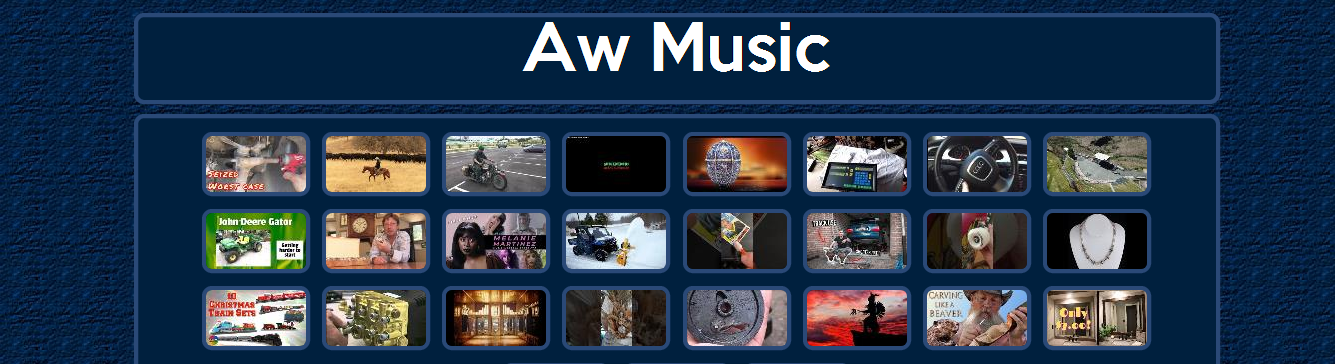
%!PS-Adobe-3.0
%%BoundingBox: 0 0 1335 364
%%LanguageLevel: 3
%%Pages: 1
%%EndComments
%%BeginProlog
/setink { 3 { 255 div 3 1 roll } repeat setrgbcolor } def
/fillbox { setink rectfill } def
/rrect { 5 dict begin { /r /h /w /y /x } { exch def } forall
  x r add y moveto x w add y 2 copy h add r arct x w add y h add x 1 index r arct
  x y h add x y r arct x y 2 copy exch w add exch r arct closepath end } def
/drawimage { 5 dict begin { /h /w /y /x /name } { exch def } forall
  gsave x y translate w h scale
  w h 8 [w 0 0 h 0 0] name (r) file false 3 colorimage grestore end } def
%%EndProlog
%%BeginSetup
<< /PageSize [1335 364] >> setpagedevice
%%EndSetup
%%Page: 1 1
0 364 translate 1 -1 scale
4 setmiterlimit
0 0 1335 364 255 255 255 fillbox
(assets/img1.rgb) 0 0 1335 364 drawimage
0 32 62 setink
136 15 1082 87 8 rrect gsave fill grestore
42 73 119 setink
4 setlinewidth
stroke
(assets/img2.rgb) 522 22 308 50 drawimage
0 32 62 setink
136 116 1082 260 8 rrect gsave fill grestore
42 73 119 setink
stroke
204 134 104 60 8 rrect stroke
324 134 104 60 8 rrect stroke
444 134 104 60 8 rrect stroke
564 134 104 60 8 rrect stroke
685 134 104 60 8 rrect stroke
805 134 104 60 8 rrect stroke
925 134 104 60 8 rrect stroke
1045 134 104 60 8 rrect stroke
(assets/img3.rgb) 206 136 100 56 drawimage
(assets/img4.rgb) 326 136 100 56 drawimage
(assets/img5.rgb) 446 136 100 56 drawimage
(assets/img6.rgb) 566 136 100 56 drawimage
(assets/img7.rgb) 687 136 100 56 drawimage
(assets/img8.rgb) 807 136 100 56 drawimage
(assets/img9.rgb) 927 136 100 56 drawimage
(assets/img10.rgb) 1047 136 100 56 drawimage
204 211 104 60 8 rrect stroke
324 211 104 60 8 rrect stroke
444 211 104 60 8 rrect stroke
564 211 104 60 8 rrect stroke
685 211 104 60 8 rrect stroke
805 211 104 60 8 rrect stroke
925 211 104 60 8 rrect stroke
1045 211 104 60 8 rrect stroke
(assets/img11.rgb) 206 213 100 56 drawimage
(assets/img12.rgb) 326 213 100 56 drawimage
(assets/img13.rgb) 446 213 100 56 drawimage
(assets/img14.rgb) 566 213 100 56 drawimage
(assets/img15.rgb) 687 213 100 56 drawimage
(assets/img16.rgb) 807 213 100 56 drawimage
(assets/img17.rgb) 927 213 100 56 drawimage
(assets/img18.rgb) 1047 213 100 56 drawimage
204 288 104 60 8 rrect stroke
324 288 104 60 8 rrect stroke
444 288 104 60 8 rrect stroke
564 288 104 60 8 rrect stroke
685 288 104 60 8 rrect stroke
805 288 104 60 8 rrect stroke
925 288 104 60 8 rrect stroke
1045 288 104 60 8 rrect stroke
(assets/img19.rgb) 206 290 100 56 drawimage
(assets/img20.rgb) 326 290 100 56 drawimage
(assets/img21.rgb) 446 290 100 56 drawimage
(assets/img22.rgb) 566 290 100 56 drawimage
(assets/img23.rgb) 687 290 100 56 drawimage
(assets/img24.rgb) 807 290 100 56 drawimage
(assets/img25.rgb) 927 290 100 56 drawimage
(assets/img26.rgb) 1047 290 100 56 drawimage
504 365 104 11 8 rrect stroke
625 365 104 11 8 rrect stroke
745 365 104 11 8 rrect stroke
showpage
%%EOF
